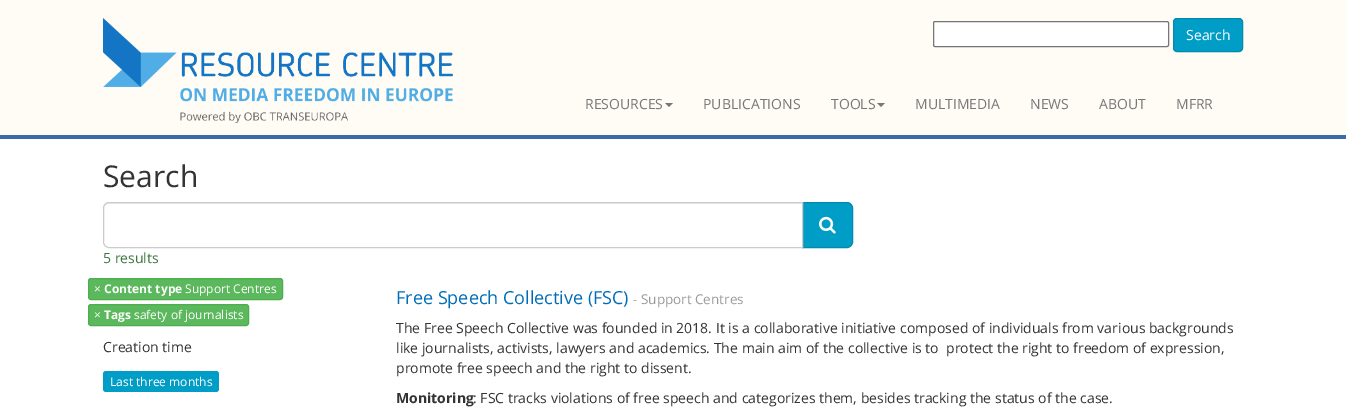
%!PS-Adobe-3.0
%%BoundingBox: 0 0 1346 409
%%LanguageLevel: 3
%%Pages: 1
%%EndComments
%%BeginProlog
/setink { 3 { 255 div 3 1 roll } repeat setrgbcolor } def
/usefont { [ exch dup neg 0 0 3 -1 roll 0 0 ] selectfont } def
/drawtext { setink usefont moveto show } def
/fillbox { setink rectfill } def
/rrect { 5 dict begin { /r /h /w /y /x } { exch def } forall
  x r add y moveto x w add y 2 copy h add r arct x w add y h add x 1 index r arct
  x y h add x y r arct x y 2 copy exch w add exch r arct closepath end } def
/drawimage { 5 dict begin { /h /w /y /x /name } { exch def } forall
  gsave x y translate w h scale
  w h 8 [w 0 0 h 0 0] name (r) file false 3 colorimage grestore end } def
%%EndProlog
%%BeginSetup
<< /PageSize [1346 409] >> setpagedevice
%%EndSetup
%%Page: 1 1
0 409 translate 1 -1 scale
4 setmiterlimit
0 0 1346 409 255 255 255 fillbox
0 0 1346 135 255 252 246 fillbox
0 135 1346 4 60 108 168 fillbox
(assets/img1.rgb) 103 18 350 105 drawimage
255 255 255 setink
933.5 21.5 235 25 1.5 rrect gsave fill grestore
118 118 118 setink
stroke
0 158 198 setink
1173.5 18.5 69 33 3.5 rrect gsave fill grestore
0 138 173 setink
stroke
(Search) 1186 40 /OpenSans-Regular 14 255 255 255 drawtext
(RESOURCES) 585 109 /OpenSans-Regular 14 119 119 119 drawtext
665 103 moveto 673 103 lineto 669 107 lineto closepath fill
(PUBLICATIONS) 703 109 /OpenSans-Regular 14 119 119 119 drawtext
(TOOLS) 831 109 /OpenSans-Regular 14 119 119 119 drawtext
877 103 moveto 885 103 lineto 881 107 lineto closepath fill
(MULTIMEDIA) 915 109 /OpenSans-Regular 14 119 119 119 drawtext
(NEWS) 1030 109 /OpenSans-Regular 14 119 119 119 drawtext
(ABOUT) 1099 109 /OpenSans-Regular 14 119 119 119 drawtext
(MFRR) 1176 109 /OpenSans-Regular 14 119 119 119 drawtext
(Search) 103 187 /OpenSans-Regular 30 51 51 51 drawtext
0 158 198 setink
802.5 202.5 moveto 847 202.5 lineto 850 202.5 852.5 205 852.5 208 curveto 852.5 242 lineto 852.5 245 850 247.5 847 247.5 curveto 802.5 247.5 lineto closepath gsave fill grestore
0 138 173 setink
stroke
255 255 255 setink
109 202 moveto 803 202 lineto 803 248 lineto 109 248 lineto 105.5 248 103 245.5 103 242 curveto 103 208 lineto 103 204.5 105.5 202 109 202 curveto closepath fill
236 236 236 setink
109 204 moveto 802 204 lineto 802 203 lineto 109 203 lineto 106 203 104 206 104 209 curveto 104 206 106 204 109 204 curveto closepath fill
204 204 204 setink
109 202.5 moveto 802.5 202.5 lineto 802.5 247.5 lineto 109 247.5 lineto 106 247.5 103.5 245 103.5 242 curveto 103.5 208 lineto 103.5 205 106 202.5 109 202.5 curveto closepath stroke
(assets/img2.rgb) 819 216 17 18 drawimage
(5 results) 103 263 /OpenSans-Regular 14 60 118 61 drawtext
92 184 92 setink
88.5 278.5 194 21 2.5 rrect gsave fill grestore
76 174 76 setink
stroke
(×) 94 293 /OpenSans-Regular 12 255 255 255 drawtext
(Content type) 104 293 /OpenSans-Bold 12 255 255 255 drawtext
(Support Centres) 185 293 /OpenSans-Regular 12 255 255 255 drawtext
92 184 92 setink
88.5 304.5 160 21 2.5 rrect gsave fill grestore
76 174 76 setink
stroke
(×) 94 319 /OpenSans-Regular 12 255 255 255 drawtext
(Tags) 104 319 /OpenSans-Bold 12 255 255 255 drawtext
(safety of journalists) 134 319 /OpenSans-Regular 12 255 255 255 drawtext
(Creation time) 103 352 /OpenSans-Regular 14 51 51 51 drawtext
0 158 198 setink
103 371 116 21 3 rrect fill
(Last three months) 110 386 /OpenSans-Regular 12 255 255 255 drawtext
(Free Speech Collective \(FSC\)) 396 304 /OpenSans-Regular 18 0 109 185 drawtext
(- Support Centres) 633 304 /OpenSans-Regular 13.5 153 153 153 drawtext
(The Free Speech Collective was founded in 2018. It is a collaborative initiative composed of individuals from various backgrounds) 396 333 /OpenSans-Regular 14 51 51 51 drawtext
(like journalists, activists, lawyers and academics. The main aim of the collective is to  protect the right to freedom of expression,) 396 353 /OpenSans-Regular 14 51 51 51 drawtext
(promote free speech and the right to dissent.) 396 373 /OpenSans-Regular 14 51 51 51 drawtext
(Monitoring) 396 403 /OpenSans-Bold 14 51 51 51 drawtext
(: FSC tracks violations of free speech and categorizes them, besides tracking the status of the case.) 473 403 /OpenSans-Regular 14 51 51 51 drawtext
showpage
%%EOF
